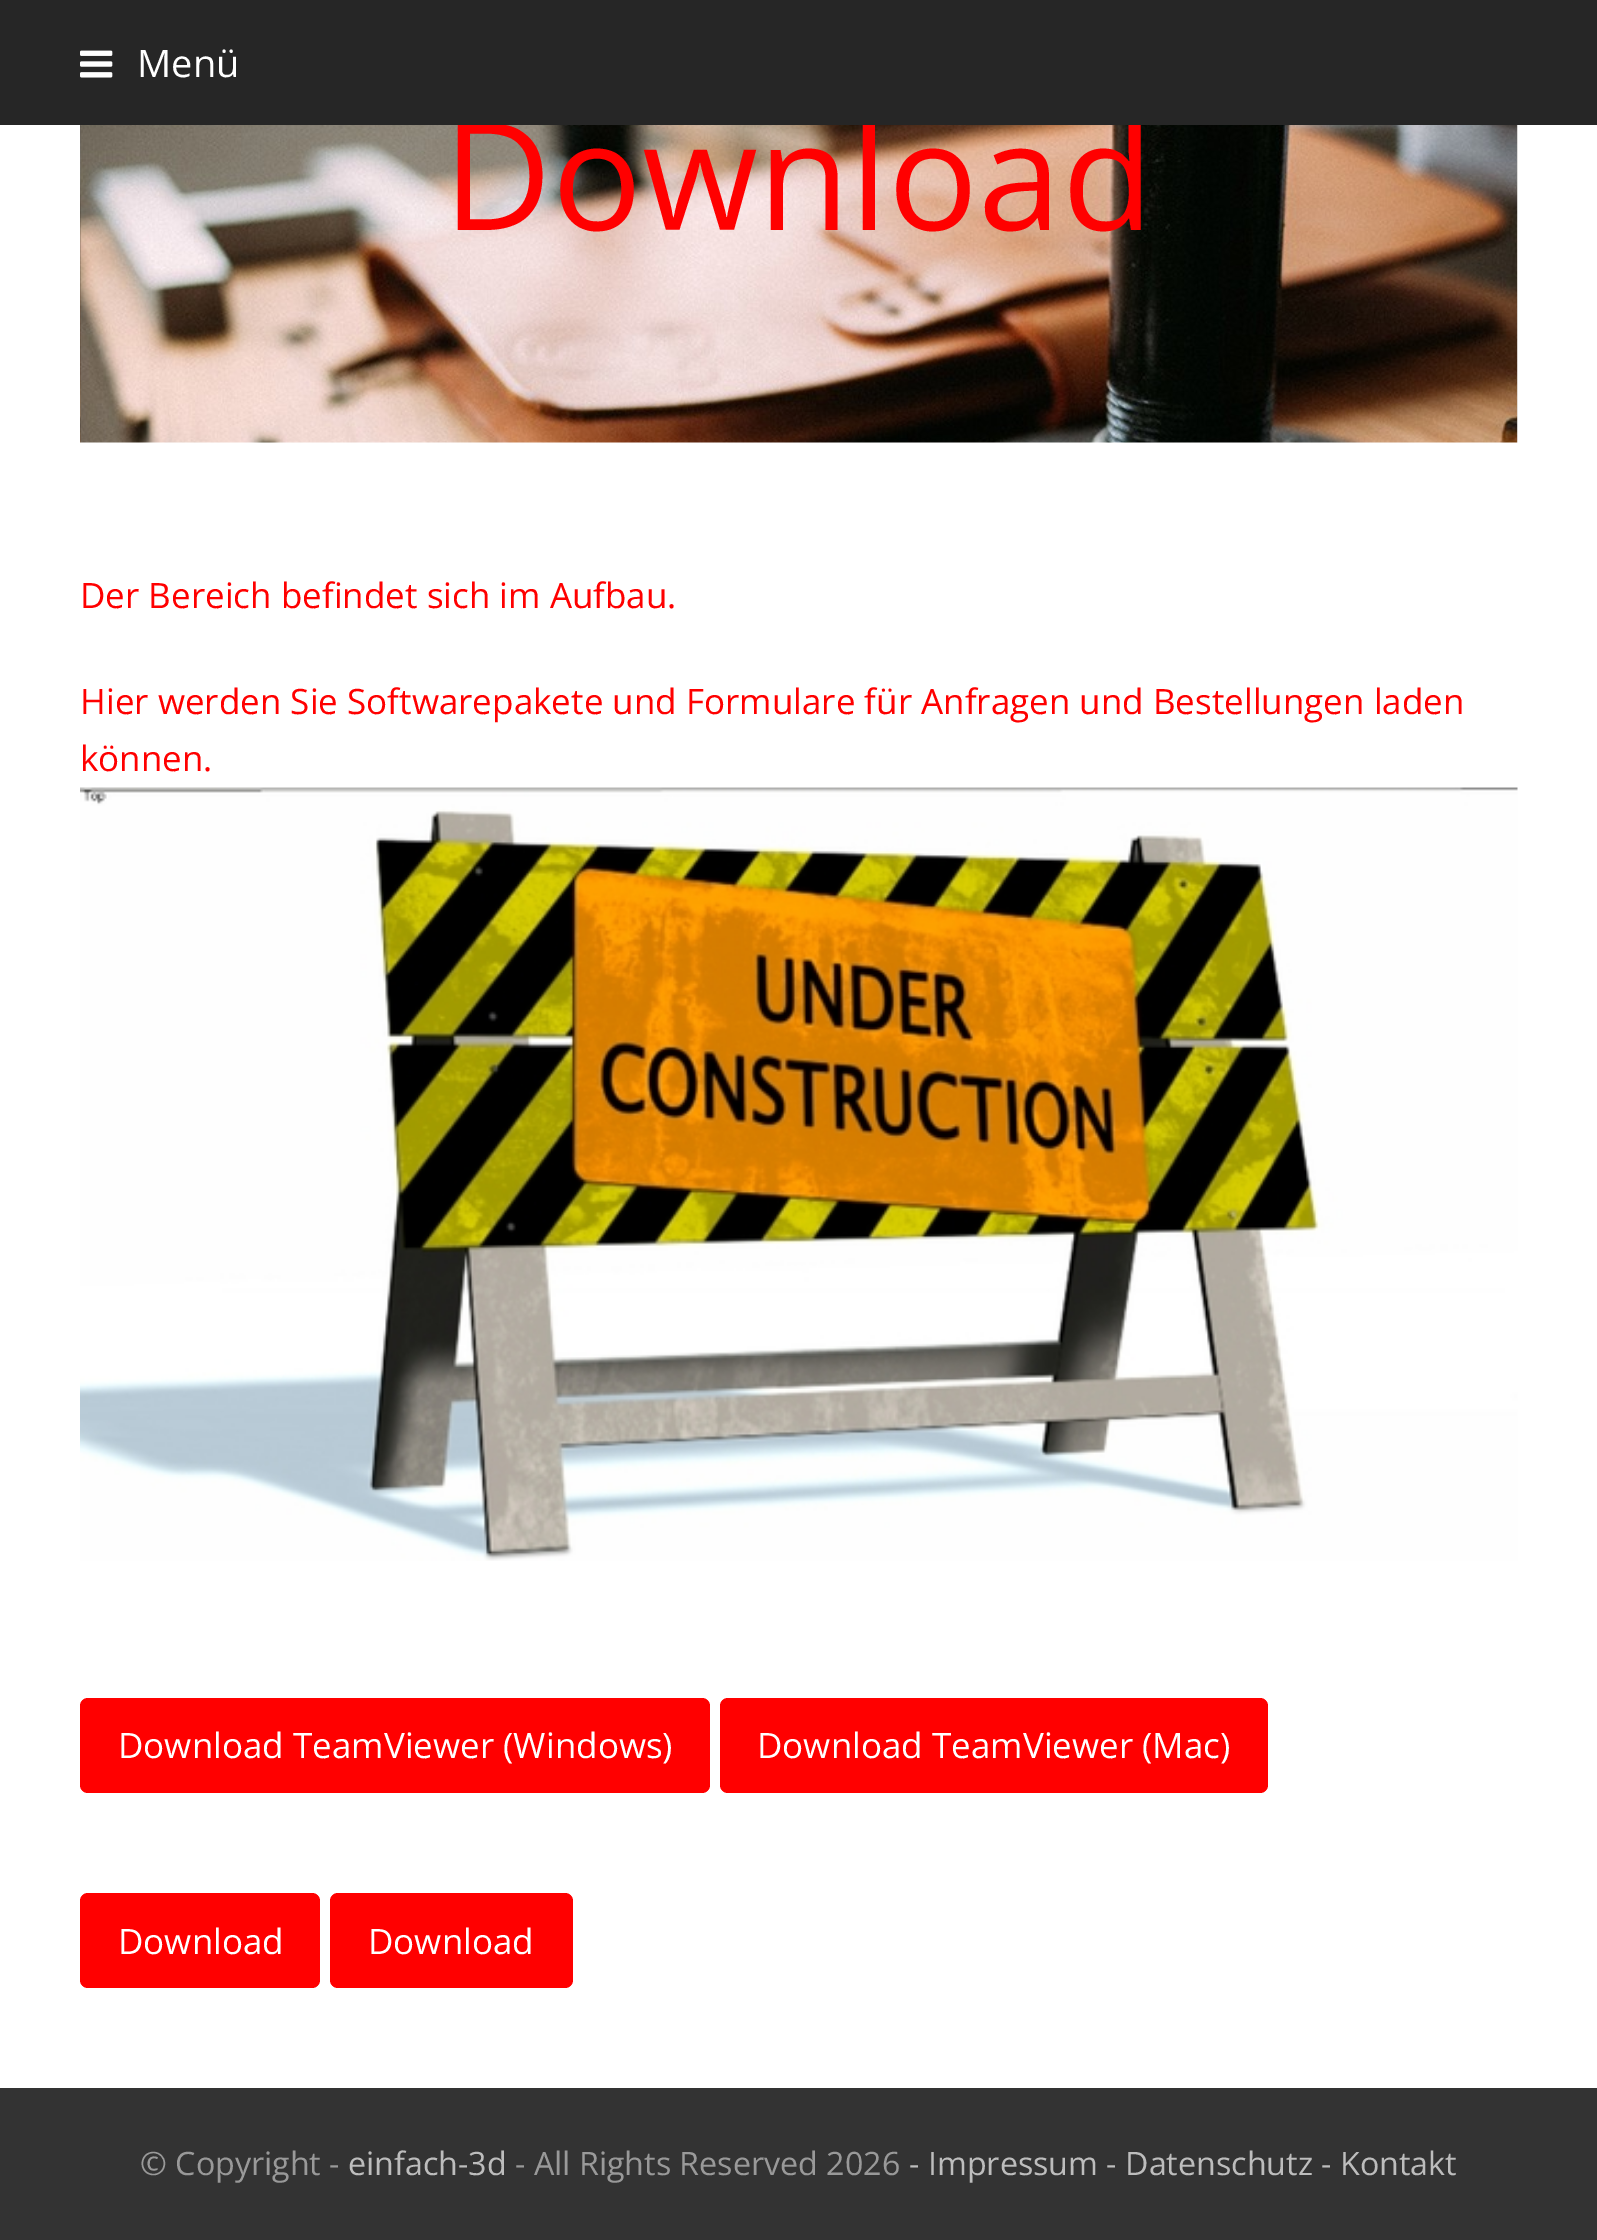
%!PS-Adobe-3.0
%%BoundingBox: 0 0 1597 2240
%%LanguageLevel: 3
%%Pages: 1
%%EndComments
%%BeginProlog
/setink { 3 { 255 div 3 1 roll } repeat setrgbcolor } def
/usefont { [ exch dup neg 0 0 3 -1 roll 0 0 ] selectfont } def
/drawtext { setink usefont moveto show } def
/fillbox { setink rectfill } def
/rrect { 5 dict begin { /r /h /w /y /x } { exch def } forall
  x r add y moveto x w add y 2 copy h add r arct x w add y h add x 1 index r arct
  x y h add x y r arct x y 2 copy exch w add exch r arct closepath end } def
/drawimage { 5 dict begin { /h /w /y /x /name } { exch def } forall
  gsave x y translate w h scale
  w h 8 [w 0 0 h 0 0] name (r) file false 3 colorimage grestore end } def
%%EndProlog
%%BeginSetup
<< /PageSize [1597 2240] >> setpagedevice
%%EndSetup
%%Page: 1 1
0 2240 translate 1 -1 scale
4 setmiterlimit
0 0 1597 2240 255 255 255 fillbox
(assets/img2.rgb) 80 125 1438 318 drawimage
(Download) 443 230 /OpenSans-Regular 150 255 0 0 drawtext
0 0 1597 125 38 38 38 fillbox
(assets/img1.rgb) 80 50 33 28 drawimage
(Menü) 137 77 /OpenSans-Regular 38 255 255 255 drawtext
(Der Bereich befindet sich im Aufbau.) 80 608 /OpenSans-Regular 35 255 0 0 drawtext
(Hier werden Sie Softwarepakete und Formulare für Anfragen und Bestellungen laden) 80 714 /OpenSans-Regular 35 255 0 0 drawtext
(können.) 80 771 /OpenSans-Regular 35 255 0 0 drawtext
(assets/img3.rgb) 80 787 1438 774 drawimage
80 1698 630 95 8 rrect fill
(Download TeamViewer \(Windows\)) 118 1758 /OpenSans-Regular 35 255 255 255 drawtext
255 0 0 setink
720 1698 548 95 8 rrect fill
(Download TeamViewer \(Mac\)) 757 1758 /OpenSans-Regular 35 255 255 255 drawtext
255 0 0 setink
80 1893 240 95 8 rrect fill
(Download) 118 1954 /OpenSans-Regular 35 255 255 255 drawtext
255 0 0 setink
330 1893 243 95 8 rrect fill
(Download) 368 1954 /OpenSans-Regular 35 255 255 255 drawtext
0 2088 1597 152 51 51 51 fillbox
(© Copyright -) 140 2175 /OpenSans-Regular 32.25 153 153 153 drawtext
(einfach-3d) 348 2175 /OpenSans-Regular 32.25 189 189 189 drawtext
(- All Rights Reserved 2026) 515 2175 /OpenSans-Regular 32.25 153 153 153 drawtext
(- Impressum - Datenschutz - Kontakt) 909 2175 /OpenSans-Regular 32.25 189 189 189 drawtext
showpage
%%EOF
